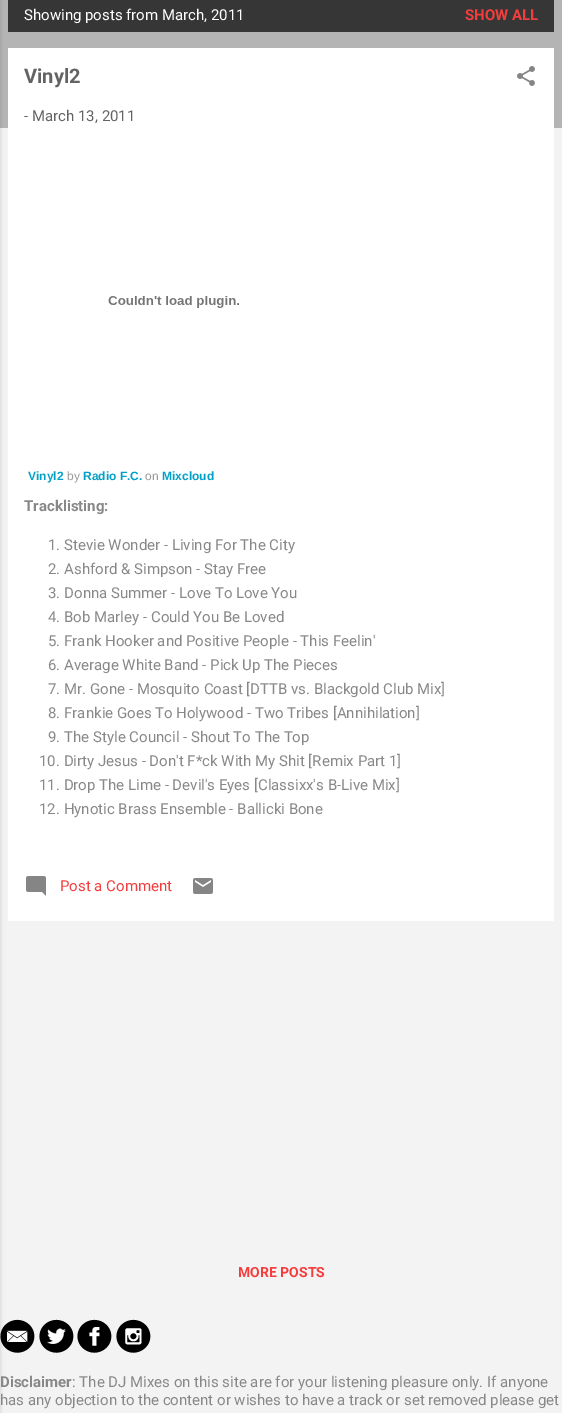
%!PS-Adobe-3.0
%%BoundingBox: 0 0 562 1413
%%LanguageLevel: 3
%%Pages: 1
%%EndComments
%%BeginProlog
/setink { 3 { 255 div 3 1 roll } repeat setrgbcolor } def
/usefont { [ exch dup neg 0 0 3 -1 roll 0 0 ] selectfont } def
/drawtext { setink usefont moveto show } def
/fillbox { setink rectfill } def
/setalpha { dup .setfillconstantalpha .setstrokeconstantalpha } def
/rrect { 5 dict begin { /r /h /w /y /x } { exch def } forall
  x r add y moveto x w add y 2 copy h add r arct x w add y h add x 1 index r arct
  x y h add x y r arct x y 2 copy exch w add exch r arct closepath end } def
/softshadow { 12 dict begin { /a /b /q /h /w /y /x } { exch def } forall gsave /was 0 def
  9 -2 -9 { dup b mul 4 div /e exch def 1 sub .425 mul 2.718 exch exp 1 add a .99 .min exch div /now exch def
    1 1 now sub 1 was sub div sub setalpha /was now def
    w h .min e 2 mul add 0 gt { x e sub y e sub w e 2 mul add h e 2 mul add
      q e add b .6 mul add w h .min 2 div e add .min 0 .max rrect fill } if } for grestore end } def
/drawimage { 5 dict begin { /h /w /y /x /name } { exch def } forall
  gsave x y translate w h scale
  w h 8 [w 0 0 h 0 0] name (r) file false 3 colorimage grestore end } def
%%EndProlog
%%BeginSetup
<< /PageSize [562 1413] /PageUsesTransparency true >> setpagedevice
%%EndSetup
%%Page: 1 1
0 .pushpdf14devicefilter
0 1413 translate 1 -1 scale
4 setmiterlimit
0 0 562 1413 243 243 243 fillbox
0 0 562 128 180 180 180 fillbox
(assets/img5.rgb) 0 1319 35 34 drawimage
0 0 0 setink
-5 1 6 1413 0 1.5 0.1 softshadow
8 0 546 32 54 54 54 fillbox
(Showing posts from March, 2011) 24 20 /Roboto-Regular 15 255 255 255 drawtext
(SHOW ALL) 465 20 /Roboto-Bold 15 245 61 61 drawtext
8 48 546 873 255 255 255 fillbox
(Vinyl2) 24 83 /Roboto-Bold 20 99 99 99 drawtext
(assets/img1.rgb) 517 66 18 20 drawimage
(- March 13, 2011) 24 121 /Roboto-Regular 15 99 99 99 drawtext
(assets/img2.rgb) 108 296 131 12 drawimage
(Vinyl2) 28 480 /LiberationSans-Bold 12 2 160 199 drawtext
(by) 67 480 /LiberationSans-Regular 12 153 153 153 drawtext
(Radio F.C.) 83 480 /LiberationSans-Bold 12 2 160 199 drawtext
(on) 145 480 /LiberationSans-Regular 12 153 153 153 drawtext
(Mixcloud) 162 480 /LiberationSans-Bold 12 2 160 199 drawtext
(Tracklisting:) 24 511 /Roboto-Bold 15 136 136 136 drawtext
(1. Stevie Wonder - Living For The City) 48 550 /Roboto-Regular 15 136 136 136 drawtext
(2. Ashford & Simpson - Stay Free) 48 574 /Roboto-Regular 15 136 136 136 drawtext
(3. Donna Summer - Love To Love You) 48 598 /Roboto-Regular 15 136 136 136 drawtext
(4. Bob Marley - Could You Be Loved) 48 622 /Roboto-Regular 15 136 136 136 drawtext
(5. Frank Hooker and Positive People - This Feelin') 48 646 /Roboto-Regular 15 136 136 136 drawtext
(6. Average White Band - Pick Up The Pieces) 48 670 /Roboto-Regular 15 136 136 136 drawtext
(7. Mr. Gone - Mosquito Coast [DTTB vs. Blackgold Club Mix]) 48 694 /Roboto-Regular 15 136 136 136 drawtext
(8. Frankie Goes To Holywood - Two Tribes [Annihilation]) 48 718 /Roboto-Regular 15 136 136 136 drawtext
(9. The Style Council - Shout To The Top) 48 742 /Roboto-Regular 15 136 136 136 drawtext
(10. Dirty Jesus - Don't F*ck With My Shit [Remix Part 1]) 39 766 /Roboto-Regular 15 136 136 136 drawtext
(11. Drop The Lime - Devil's Eyes [Classixx's B-Live Mix]) 39 790 /Roboto-Regular 15 136 136 136 drawtext
(12. Hynotic Brass Ensemble - Ballicki Bone) 39 814 /Roboto-Regular 15 136 136 136 drawtext
(assets/img3.rgb) 26 876 20 20 drawimage
(Post a Comment) 60 891 /Roboto-Regular 15 245 61 61 drawtext
(assets/img4.rgb) 193 878 20 16 drawimage
(MORE POSTS) 238 1277 /Roboto-Bold 14 245 61 61 drawtext
(assets/img6.rgb) 39 1319 35 34 drawimage
(assets/img7.rgb) 77 1319 35 34 drawimage
(assets/img8.rgb) 116 1319 35 34 drawimage
(Disclaimer) 0 1387 /Roboto-Bold 15 136 136 136 drawtext
(: The DJ Mixes on this site are for your listening pleasure only. If anyone) 72 1387 /Roboto-Regular 15 136 136 136 drawtext
(has any objection to the content or wishes to have a track or set removed please get) 0 1405 /Roboto-Regular 15 136 136 136 drawtext
.poppdf14devicefilter showpage
%%EOF
